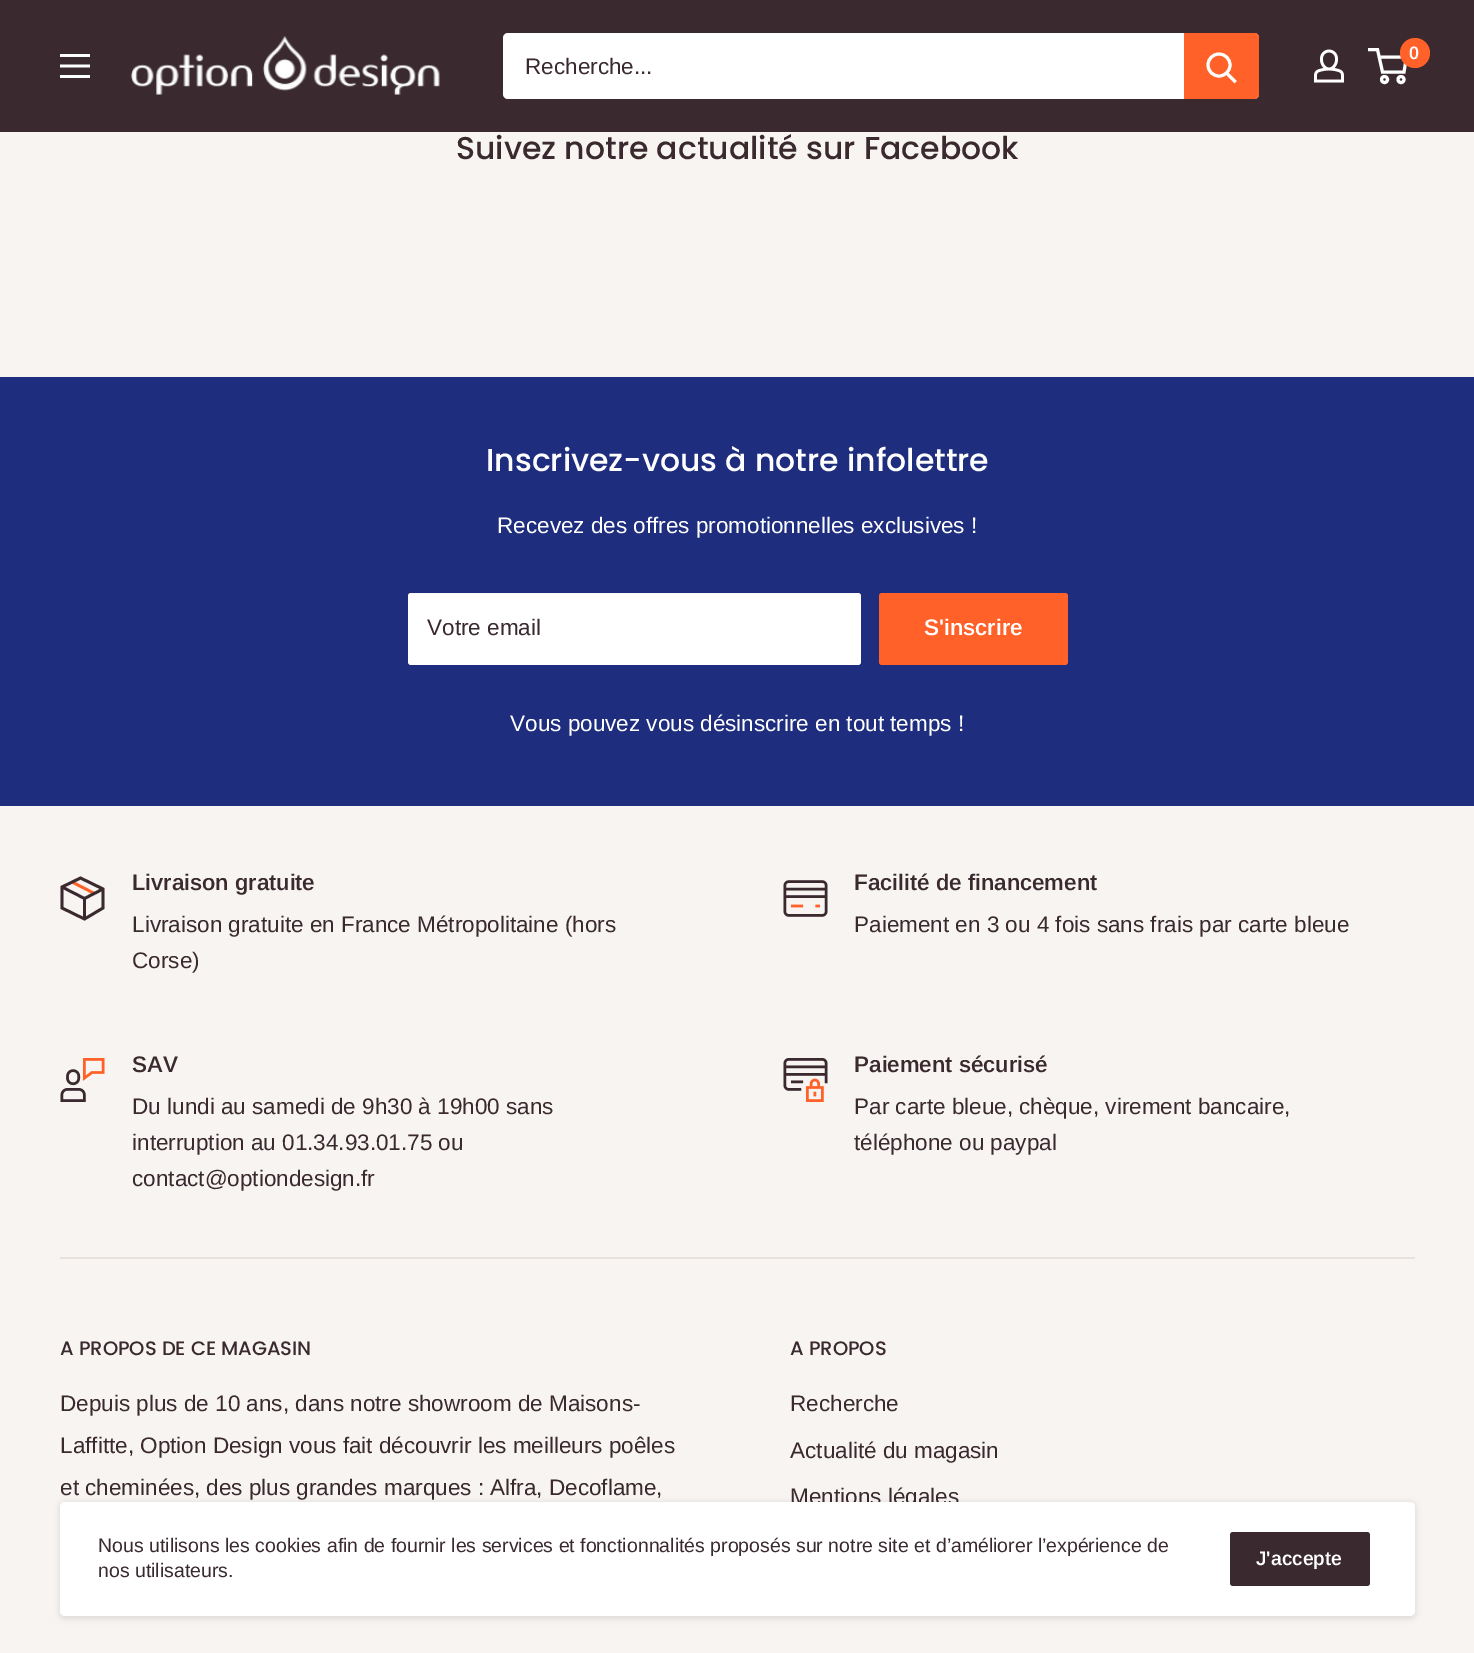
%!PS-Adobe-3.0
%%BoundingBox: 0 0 1474 1653
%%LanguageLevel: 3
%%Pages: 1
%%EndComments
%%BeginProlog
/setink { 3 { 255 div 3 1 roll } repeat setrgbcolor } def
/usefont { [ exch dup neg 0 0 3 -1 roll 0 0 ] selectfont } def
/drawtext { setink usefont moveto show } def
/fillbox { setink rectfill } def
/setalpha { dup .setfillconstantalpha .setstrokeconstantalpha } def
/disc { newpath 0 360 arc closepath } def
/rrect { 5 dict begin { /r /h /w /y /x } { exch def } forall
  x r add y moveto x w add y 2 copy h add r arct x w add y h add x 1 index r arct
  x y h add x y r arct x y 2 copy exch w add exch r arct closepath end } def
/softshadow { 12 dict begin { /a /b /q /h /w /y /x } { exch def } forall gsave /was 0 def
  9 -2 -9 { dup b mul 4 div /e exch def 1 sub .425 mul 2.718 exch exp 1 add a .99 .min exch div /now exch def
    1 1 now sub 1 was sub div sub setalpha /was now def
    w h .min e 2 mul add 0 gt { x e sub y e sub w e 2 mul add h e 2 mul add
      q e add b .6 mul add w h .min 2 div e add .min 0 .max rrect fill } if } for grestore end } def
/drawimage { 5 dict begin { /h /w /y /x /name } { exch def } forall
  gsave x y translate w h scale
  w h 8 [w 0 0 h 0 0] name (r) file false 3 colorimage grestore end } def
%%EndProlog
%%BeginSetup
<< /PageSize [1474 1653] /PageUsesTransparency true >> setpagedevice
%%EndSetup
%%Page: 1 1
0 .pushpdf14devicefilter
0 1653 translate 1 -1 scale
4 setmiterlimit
0 0 1474 1653 247 244 242 fillbox
0 0 1474 132 58 42 47 fillbox
(assets/img1.rgb) 60 54 30 24 drawimage
(assets/img2.rgb) 130 36 310 59 drawimage
255 255 255 setink
503 33 756 66 5 rrect fill
(Recherche...) 525 74 /Arimo-Regular 22.5 58 42 47 drawtext
255 97 40 setink
1184 33 moveto 1254 33 lineto 1257 33 1259 35 1259 38 curveto 1259 94 lineto 1259 97 1257 99 1254 99 curveto 1184 99 lineto closepath fill
255 255 255 setink
3 setlinewidth
2 setlinecap
1234.5 81 moveto 1227 73.5 lineto stroke
0 setlinecap
1219 65 11 disc stroke
(assets/img3.rgb) 1314 49 30 34 drawimage
1384.5 79.5 3 disc stroke
1401 79.5 3 disc stroke
1379 57 moveto 1406.5 57 lineto 1404 72 lineto 1382.5 72 lineto 1377.5 49.5 lineto 1368 49.5 lineto stroke
255 97 40 setink
1415 53 15 disc fill
(0) 1409 59 /Arimo-SemiBold 18 255 255 255 drawtext
(Suivez notre actualité sur Facebook) 456 159 /Poppins-Medium 31.5 58 42 47 drawtext
0 377 1474 429 30 45 125 fillbox
(Inscrivez-vous à notre infolettre) 486 471 /Poppins-Medium 31.5 255 255 255 drawtext
(Recevez des offres promotionnelles exclusives !) 497 533 /Arimo-Regular 22.5 255 255 255 drawtext
408 593 453 72 3 rrect fill
0.25 setalpha
231 226 222 setink
411 594 moveto 858 594 lineto 860 594 861 595 861 597 curveto 861 595 lineto 859 593 lineto 410 593 lineto 408 594 408 595 408 597 curveto 408 595 409 594 411 594 curveto closepath fill
1 setalpha
(Votre email) 427 635 /Arimo-Regular 22.5 58 42 47 drawtext
255 97 40 setink
879 593 189 72 3 rrect fill
(S'inscrire) 924 635 /Arimo-SemiBold 22.5 255 255 255 drawtext
(Vous pouvez vous désinscrire en tout temps !) 510 731 /Arimo-Regular 22.5 255 255 255 drawtext
255 97 40 setink
2.8 setlinewidth
72 882 moveto 94.5 893.5 lineto stroke
58 42 47 setink
103 889 moveto 84.5 898.5 lineto 62 887 lineto 84.5 898.5 moveto 84.5 919 lineto stroke
2 setlinecap
103 889 moveto 103 908 lineto 84.5 919 lineto 62 908 lineto 62 887 lineto 80.5 878 lineto closepath stroke
(Livraison gratuite) 132 890 /Arimo-SemiBold 22.5 58 42 47 drawtext
(Livraison gratuite en France Métropolitaine \(hors) 132 932 /Arimo-Regular 22.5 58 42 47 drawtext
(Corse\)) 132 968 /Arimo-Regular 22.5 58 42 47 drawtext
(assets/img4.rgb) 783 880 45 37 drawimage
(Facilité de financement) 854 890 /Arimo-SemiBold 22.5 58 42 47 drawtext
(Paiement en 3 ou 4 fois sans frais par carte bleue) 854 932 /Arimo-Regular 22.5 58 42 47 drawtext
(assets/img5.rgb) 60 1058 45 44 drawimage
(SAV) 132 1072 /Arimo-SemiBold 22.5 58 42 47 drawtext
(Du lundi au samedi de 9h30 à 19h00 sans) 132 1114 /Arimo-Regular 22.5 58 42 47 drawtext
(interruption au 01.34.93.01.75 ou) 132 1150 /Arimo-Regular 22.5 58 42 47 drawtext
(contact@optiondesign.fr) 132 1186 /Arimo-Regular 22.5 58 42 47 drawtext
(assets/img6.rgb) 783 1058 45 44 drawimage
(Paiement sécurisé) 854 1072 /Arimo-SemiBold 22.5 58 42 47 drawtext
(Par carte bleue, chèque, virement bancaire,) 854 1114 /Arimo-Regular 22.5 58 42 47 drawtext
(téléphone ou paypal) 854 1150 /Arimo-Regular 22.5 58 42 47 drawtext
60 1257 1355 2 231 226 222 fillbox
(A PROPOS DE CE MAGASIN) 60 1355 /Poppins-Medium 19.5 58 42 47 drawtext
(Depuis plus de 10 ans, dans notre showroom de Maisons-) 60 1411 /Arimo-Regular 22.5 58 42 47 drawtext
(Laffitte, Option Design vous fait découvrir les meilleurs poêles) 60 1453 /Arimo-Regular 22.5 58 42 47 drawtext
(et cheminées, des plus grandes marques : Alfra, Decoflame,) 60 1495 /Arimo-Regular 22.5 58 42 47 drawtext
(A PROPOS) 790 1355 /Poppins-Medium 19.5 58 42 47 drawtext
(Recherche) 790 1411 /Arimo-Regular 22.5 58 42 47 drawtext
(Actualité du magasin) 790 1458 /Arimo-Regular 22.5 58 42 47 drawtext
(Mentions légales) 790 1504 /Arimo-Regular 22.5 58 42 47 drawtext
0 0 0 setink
59 1502 1357 117 6 3 0.1 softshadow
255 255 255 setink
60 1502 1355 114 5 rrect fill
(Nous utilisons les cookies afin de fournir les services et fonctionnalités proposés sur notre site et d’améliorer l’expérience de) 98 1552 /Arimo-Regular 19.5 58 42 47 drawtext
(nos utilisateurs.) 98 1577 /Arimo-Regular 19.5 58 42 47 drawtext
1230 1532 140 54 3 rrect fill
(J'accepte) 1256 1565 /Arimo-SemiBold 19.5 255 255 255 drawtext
.poppdf14devicefilter showpage
%%EOF
